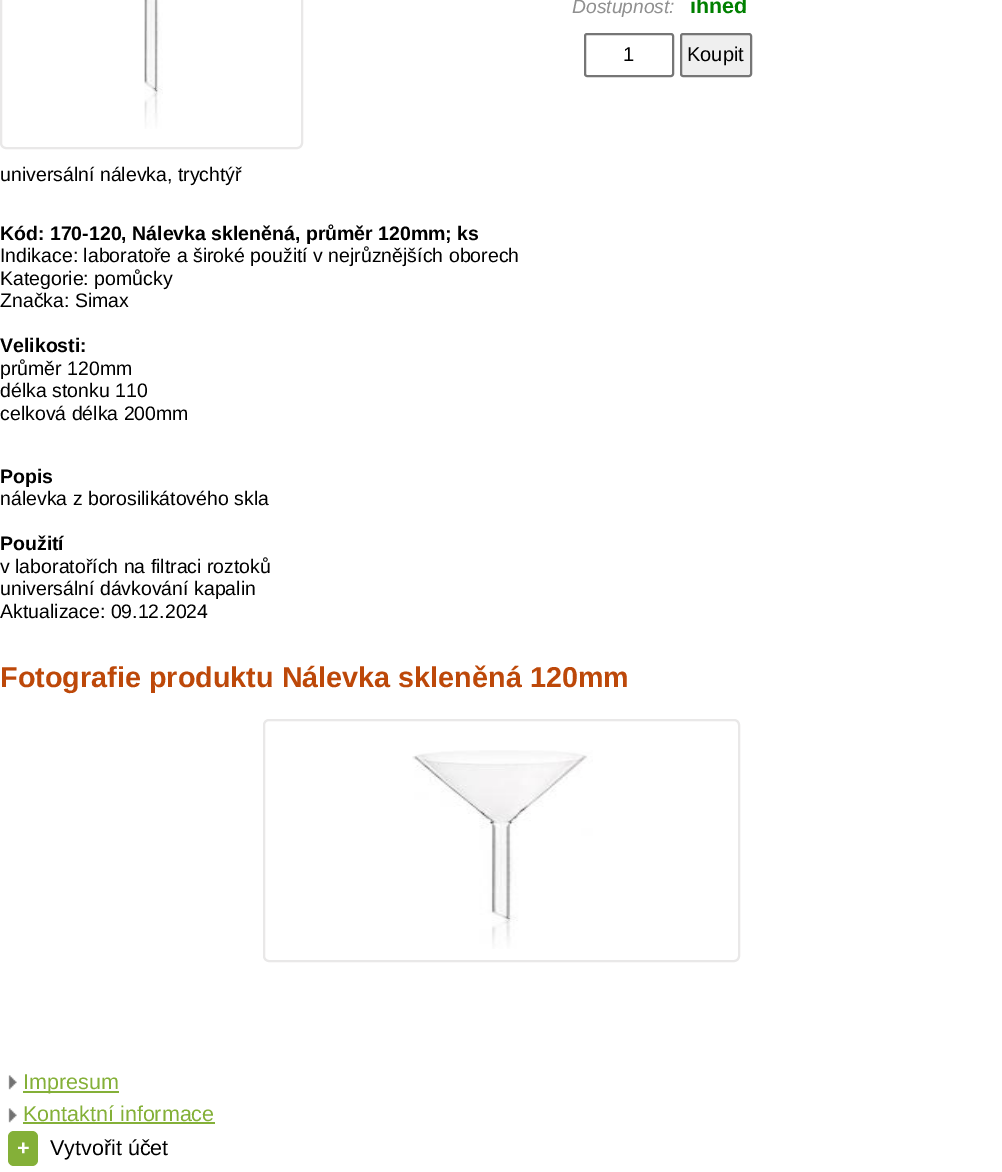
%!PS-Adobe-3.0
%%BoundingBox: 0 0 1002 1172
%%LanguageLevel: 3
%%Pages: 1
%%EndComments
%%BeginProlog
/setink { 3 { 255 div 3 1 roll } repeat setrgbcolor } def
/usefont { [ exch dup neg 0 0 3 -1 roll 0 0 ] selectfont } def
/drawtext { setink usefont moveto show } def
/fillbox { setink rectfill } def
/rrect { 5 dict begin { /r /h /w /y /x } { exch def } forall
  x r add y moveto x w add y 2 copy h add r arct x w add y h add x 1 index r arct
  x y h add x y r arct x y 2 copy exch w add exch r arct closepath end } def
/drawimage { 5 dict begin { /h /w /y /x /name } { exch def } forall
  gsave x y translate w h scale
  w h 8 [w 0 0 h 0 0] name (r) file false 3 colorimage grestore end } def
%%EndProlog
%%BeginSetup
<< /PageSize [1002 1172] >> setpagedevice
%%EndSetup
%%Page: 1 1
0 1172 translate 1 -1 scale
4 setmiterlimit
0 0 1002 1172 255 255 255 fillbox
233 232 232 setink
2 setlinewidth
1 -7 301 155 5 rrect stroke
(assets/img1.rgb) 144 0 19 129 drawimage
(Dostupnost:) 572 13 /LiberationSans-Italic 19.25 144 144 144 drawtext
(ihned) 690 13 /LiberationSans-Bold 21.5 0 128 0 drawtext
118 118 118 setink
585 34 88 42 2 rrect stroke
(1) 623 61 /LiberationSans-Regular 20 0 0 0 drawtext
239 239 239 setink
681 34 70 42 2 rrect gsave fill grestore
118 118 118 setink
stroke
(Koupit) 687 61 /LiberationSans-Regular 20 0 0 0 drawtext
(universální nálevka, trychtýř) 0 181 /LiberationSans-Regular 19.5 0 0 0 drawtext
(Kód: 170-120, Nálevka skleněná, průměr 120mm; ks) 0 240 /LiberationSans-Bold 19.5 0 0 0 drawtext
(Indikace: laboratoře a široké použití v nejrůznějších oborech) 0 262 /LiberationSans-Regular 19.5 0 0 0 drawtext
(Kategorie: pomůcky) 0 285 /LiberationSans-Regular 19.5 0 0 0 drawtext
(Značka: Simax) 0 307 /LiberationSans-Regular 19.5 0 0 0 drawtext
(Velikosti:) 0 352 /LiberationSans-Bold 19.5 0 0 0 drawtext
(průměr 120mm) 0 375 /LiberationSans-Regular 19.5 0 0 0 drawtext
(délka stonku 110) 0 397 /LiberationSans-Regular 19.5 0 0 0 drawtext
(celková délka 200mm) 0 420 /LiberationSans-Regular 19.5 0 0 0 drawtext
(Popis) 0 483 /LiberationSans-Bold 19.5 0 0 0 drawtext
(nálevka z borosilikátového skla) 0 505 /LiberationSans-Regular 19.5 0 0 0 drawtext
(Použití) 0 550 /LiberationSans-Bold 19.5 0 0 0 drawtext
(v laboratořích na filtraci roztoků) 0 573 /LiberationSans-Regular 19.5 0 0 0 drawtext
(universální dávkování kapalin) 0 595 /LiberationSans-Regular 19.5 0 0 0 drawtext
(Aktualizace: 09.12.2024) 0 618 /LiberationSans-Regular 19.5 0 0 0 drawtext
(Fotografie produktu Nálevka skleněná 120mm) 0 687 /LiberationSans-Bold 28.8 189 72 9 drawtext
233 232 232 setink
264 720 475 241 5 rrect stroke
(assets/img2.rgb) 412 750 181 199 drawimage
(assets/img3.rgb) 8 1075 9 15 drawimage
23 1091 96 2 132 176 56 fillbox
(Impresum) 23 1089 /LiberationSans-Regular 21.5 132 176 56 drawtext
(assets/img3.rgb) 8 1108 9 15 drawimage
(Kontaktní informace) 23 1121 /LiberationSans-Regular 21.5 132 176 56 drawtext
23 1122 192 2 132 176 56 fillbox
8 1131 30 35 6 rrect fill
(+) 17 1155 /LiberationSans-Bold 21.5 255 255 255 drawtext
(Vytvořit účet) 50 1155 /LiberationSans-Regular 21.5 0 0 0 drawtext
showpage
%%EOF
